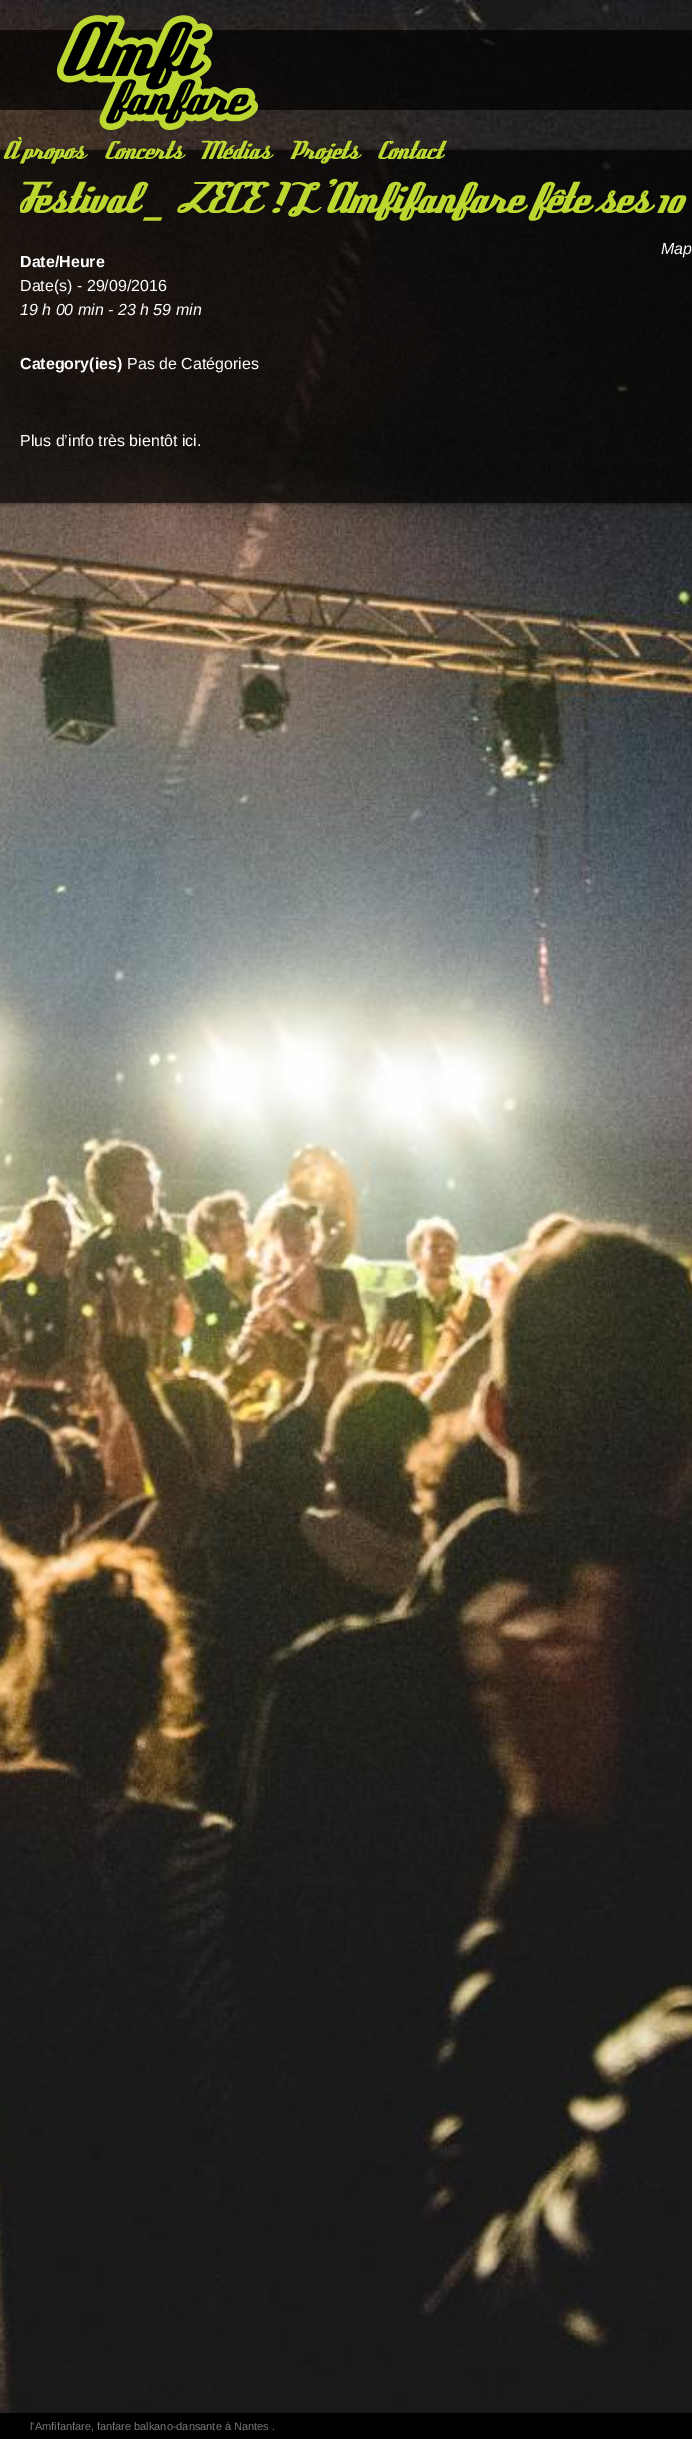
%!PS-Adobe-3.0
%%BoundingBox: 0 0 692 2439
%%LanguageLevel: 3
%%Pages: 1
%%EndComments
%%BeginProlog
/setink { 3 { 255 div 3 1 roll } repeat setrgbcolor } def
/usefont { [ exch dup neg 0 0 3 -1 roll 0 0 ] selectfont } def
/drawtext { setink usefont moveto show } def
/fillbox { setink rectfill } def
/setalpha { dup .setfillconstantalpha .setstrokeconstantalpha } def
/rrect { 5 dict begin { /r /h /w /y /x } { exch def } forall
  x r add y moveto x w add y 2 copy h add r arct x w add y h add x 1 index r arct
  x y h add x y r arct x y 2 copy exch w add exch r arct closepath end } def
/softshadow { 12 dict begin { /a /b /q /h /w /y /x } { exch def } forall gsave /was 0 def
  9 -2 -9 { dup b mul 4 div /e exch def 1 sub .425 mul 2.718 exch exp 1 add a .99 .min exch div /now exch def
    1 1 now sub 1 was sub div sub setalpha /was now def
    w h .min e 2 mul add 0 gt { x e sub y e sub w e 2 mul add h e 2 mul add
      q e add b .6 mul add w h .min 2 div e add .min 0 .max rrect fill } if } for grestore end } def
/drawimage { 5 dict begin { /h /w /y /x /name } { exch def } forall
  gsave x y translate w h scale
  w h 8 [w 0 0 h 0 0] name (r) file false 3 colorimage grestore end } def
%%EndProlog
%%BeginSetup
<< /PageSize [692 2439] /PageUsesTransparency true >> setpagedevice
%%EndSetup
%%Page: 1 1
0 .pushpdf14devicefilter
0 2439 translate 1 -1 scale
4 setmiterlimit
0 0 692 2439 255 255 255 fillbox
(assets/img1.rgb) 0 0 692 2413 drawimage
0.7 setalpha
0 30 692 80 0 0 0 fillbox
1 setalpha
(assets/img2.rgb) 56 15 203 116 drawimage
gsave
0 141 moveto 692 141 lineto 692 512 lineto 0 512 lineto closepath 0 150 moveto 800 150 lineto 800 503 lineto 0 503 lineto closepath eoclip newpath
0 150 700 353 0 2.5 0.5 softshadow
grestore
0.7 setalpha
0 150 692 353 0 0 0 fillbox
1 setalpha
(À propos) 2 159 /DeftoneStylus-Regular 28 188 215 48 drawtext
(Concerts) 103 159 /DeftoneStylus-Regular 28 188 215 48 drawtext
(Médias) 200 159 /DeftoneStylus-Regular 28 188 215 48 drawtext
(Projets) 289 159 /DeftoneStylus-Regular 28 188 215 48 drawtext
(Contact) 376 159 /DeftoneStylus-Regular 28 188 215 48 drawtext
gsave
20 160 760 323 rectclip
(Festival _ ZECE ! L’Amfifanfare fête ses 10) 20 213 /DeftoneStylus-Regular 48 188 215 48 drawtext
grestore
(Map) 661 254 /LiberationSans-Italic 16 255 255 255 drawtext
(Date/Heure) 20 267 /LiberationSans-Bold 16 255 255 255 drawtext
(Date\(s\) - 29/09/2016) 20 291 /LiberationSans-Regular 16 255 255 255 drawtext
(19 h 00 min - 23 h 59 min) 20 315 /LiberationSans-Italic 16 255 255 255 drawtext
(Category\(ies\)) 20 369 /LiberationSans-Bold 16 255 255 255 drawtext
(Pas de Catégories) 127 369 /LiberationSans-Regular 16 255 255 255 drawtext
(Plus d’info très bientôt ici.) 20 446 /LiberationSans-Regular 16 255 255 255 drawtext
0 2413 692 26 0 0 0 fillbox
(l'Amfifanfare, fanfare balkano-dansante à Nantes .) 30 2430 /LiberationSans-Regular 11 119 119 119 drawtext
.poppdf14devicefilter showpage
%%EOF
